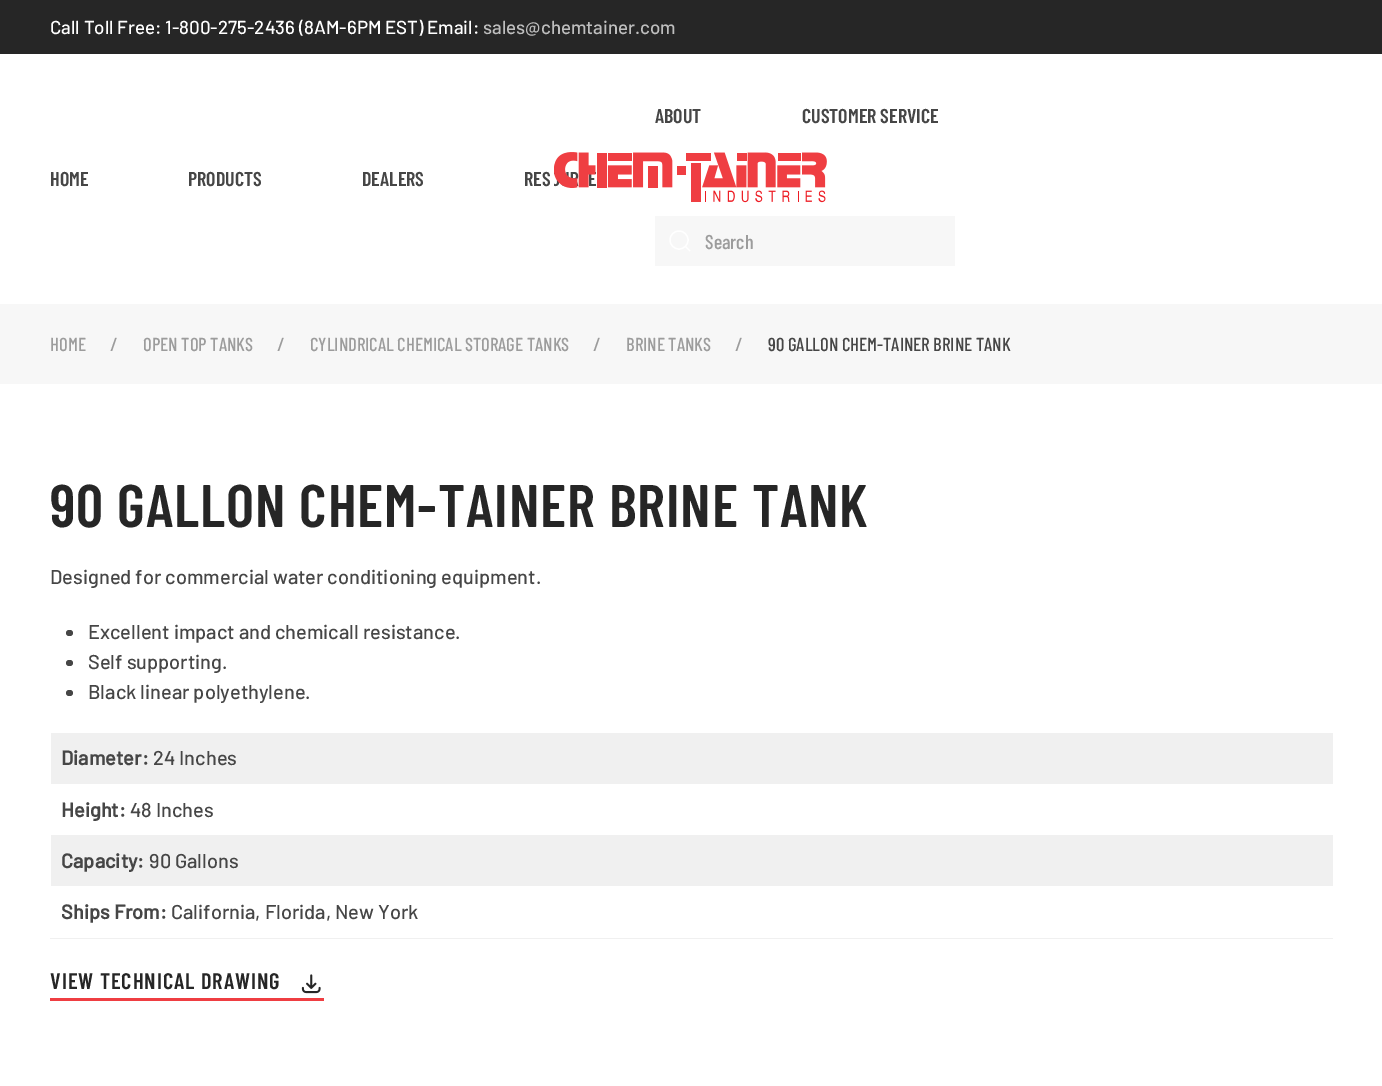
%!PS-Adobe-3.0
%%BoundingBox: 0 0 1382 1086
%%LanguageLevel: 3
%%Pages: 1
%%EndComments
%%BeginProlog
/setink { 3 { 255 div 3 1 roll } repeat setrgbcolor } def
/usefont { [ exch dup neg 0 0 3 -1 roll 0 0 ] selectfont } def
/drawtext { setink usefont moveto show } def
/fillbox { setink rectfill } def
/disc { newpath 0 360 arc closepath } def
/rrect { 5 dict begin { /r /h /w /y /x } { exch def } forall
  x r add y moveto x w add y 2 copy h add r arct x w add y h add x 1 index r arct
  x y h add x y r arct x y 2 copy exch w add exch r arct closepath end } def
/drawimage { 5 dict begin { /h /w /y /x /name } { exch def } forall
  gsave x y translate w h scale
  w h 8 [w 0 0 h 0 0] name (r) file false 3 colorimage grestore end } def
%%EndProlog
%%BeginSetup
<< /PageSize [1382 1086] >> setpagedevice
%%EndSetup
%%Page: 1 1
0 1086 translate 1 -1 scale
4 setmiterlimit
0 0 1382 1086 255 255 255 fillbox
0 0 1382 54 38 38 38 fillbox
(Call Toll Free: 1-800-275-2436 \(8AM-6PM EST\) Email:) 50 34 /Barlow-Medium 18.75 255 255 255 drawtext
(sales@chemtainer.com) 483 34 /Barlow-Medium 18.75 190 190 190 drawtext
(ABOUT) 655 123 /BarlowCondensed-SemiBold 20 70 70 70 drawtext
(CUSTOMER SERVICE) 802 123 /BarlowCondensed-SemiBold 20 70 70 70 drawtext
655 216 300 50 247 247 247 fillbox
255 255 255 setink
1.4 setlinewidth
679 240 9 disc stroke
685 246 moveto 690 251 lineto closepath stroke
(Search) 705 249 /BarlowCondensed-Medium 20 156 156 156 drawtext
(HOME) 50 186 /BarlowCondensed-SemiBold 20 70 70 70 drawtext
(PRODUCTS) 188 186 /BarlowCondensed-SemiBold 20 70 70 70 drawtext
(DEALERS) 362 186 /BarlowCondensed-SemiBold 20 70 70 70 drawtext
(RES) 524 186 /BarlowCondensed-SemiBold 20 70 70 70 drawtext
(assets/img1.rgb) 554 152 273 51 drawimage
0 304 1382 80 247 247 247 fillbox
(HOME) 50 351 /BarlowCondensed-Medium 18.75 156 156 156 drawtext
(/) 110 351 /Barlow-Medium 18.75 156 156 156 drawtext
(OPEN TOP TANKS) 143 351 /BarlowCondensed-Medium 18.75 156 156 156 drawtext
(/) 277 351 /Barlow-Medium 18.75 156 156 156 drawtext
(CYLINDRICAL CHEMICAL STORAGE TANKS) 310 351 /BarlowCondensed-Medium 18.75 156 156 156 drawtext
(/) 593 351 /Barlow-Medium 18.75 156 156 156 drawtext
(BRINE TANKS) 626 351 /BarlowCondensed-Medium 18.75 156 156 156 drawtext
(/) 735 351 /Barlow-Medium 18.75 156 156 156 drawtext
(90 GALLON CHEM-TAINER BRINE TANK) 768 351 /BarlowCondensed-Medium 18.75 70 70 70 drawtext
/BarlowCondensed-SemiBold 60 usefont
38 38 38 setink
50 527 moveto 0.95 0 (90 GALLON CHEM-TAINER BRINE TANK) ashow
(Designed for commercial water conditioning equipment.) 50 584 /Barlow-Medium 20 70 70 70 drawtext
66 630 7 6 3 rrect fill
(Excellent impact and chemicall resistance.) 88 639 /Barlow-Medium 20 70 70 70 drawtext
66 660 7 6 3 rrect fill
(Self supporting.) 88 669 /Barlow-Medium 20 70 70 70 drawtext
66 690 7 6 3 rrect fill
(Black linear polyethylene.) 88 699 /Barlow-Medium 20 70 70 70 drawtext
50 938 1283 1 240 240 240 fillbox
51 733 1282 51 240 240 240 fillbox
(Diameter:) 61 765 /Barlow-Bold 20 70 70 70 drawtext
(24 Inches) 153 765 /Barlow-Medium 20 70 70 70 drawtext
(Height:) 61 817 /Barlow-Bold 20 70 70 70 drawtext
(48 Inches) 130 817 /Barlow-Medium 20 70 70 70 drawtext
51 835 1282 51 240 240 240 fillbox
(Capacity:) 61 868 /Barlow-Bold 20 70 70 70 drawtext
(90 Gallons) 149 868 /Barlow-Medium 20 70 70 70 drawtext
(Ships From:) 61 919 /Barlow-Bold 20 70 70 70 drawtext
(California, Florida, New York) 171 919 /Barlow-Medium 20 70 70 70 drawtext
50 998 274 3 239 62 66 fillbox
/BarlowCondensed-SemiBold 22.5 usefont
38 38 38 setink
50 989 moveto 0.95 0 (VIEW TECHNICAL DRAWING) ashow
(assets/img2.rgb) 301 974 20 20 drawimage
showpage
%%EOF
